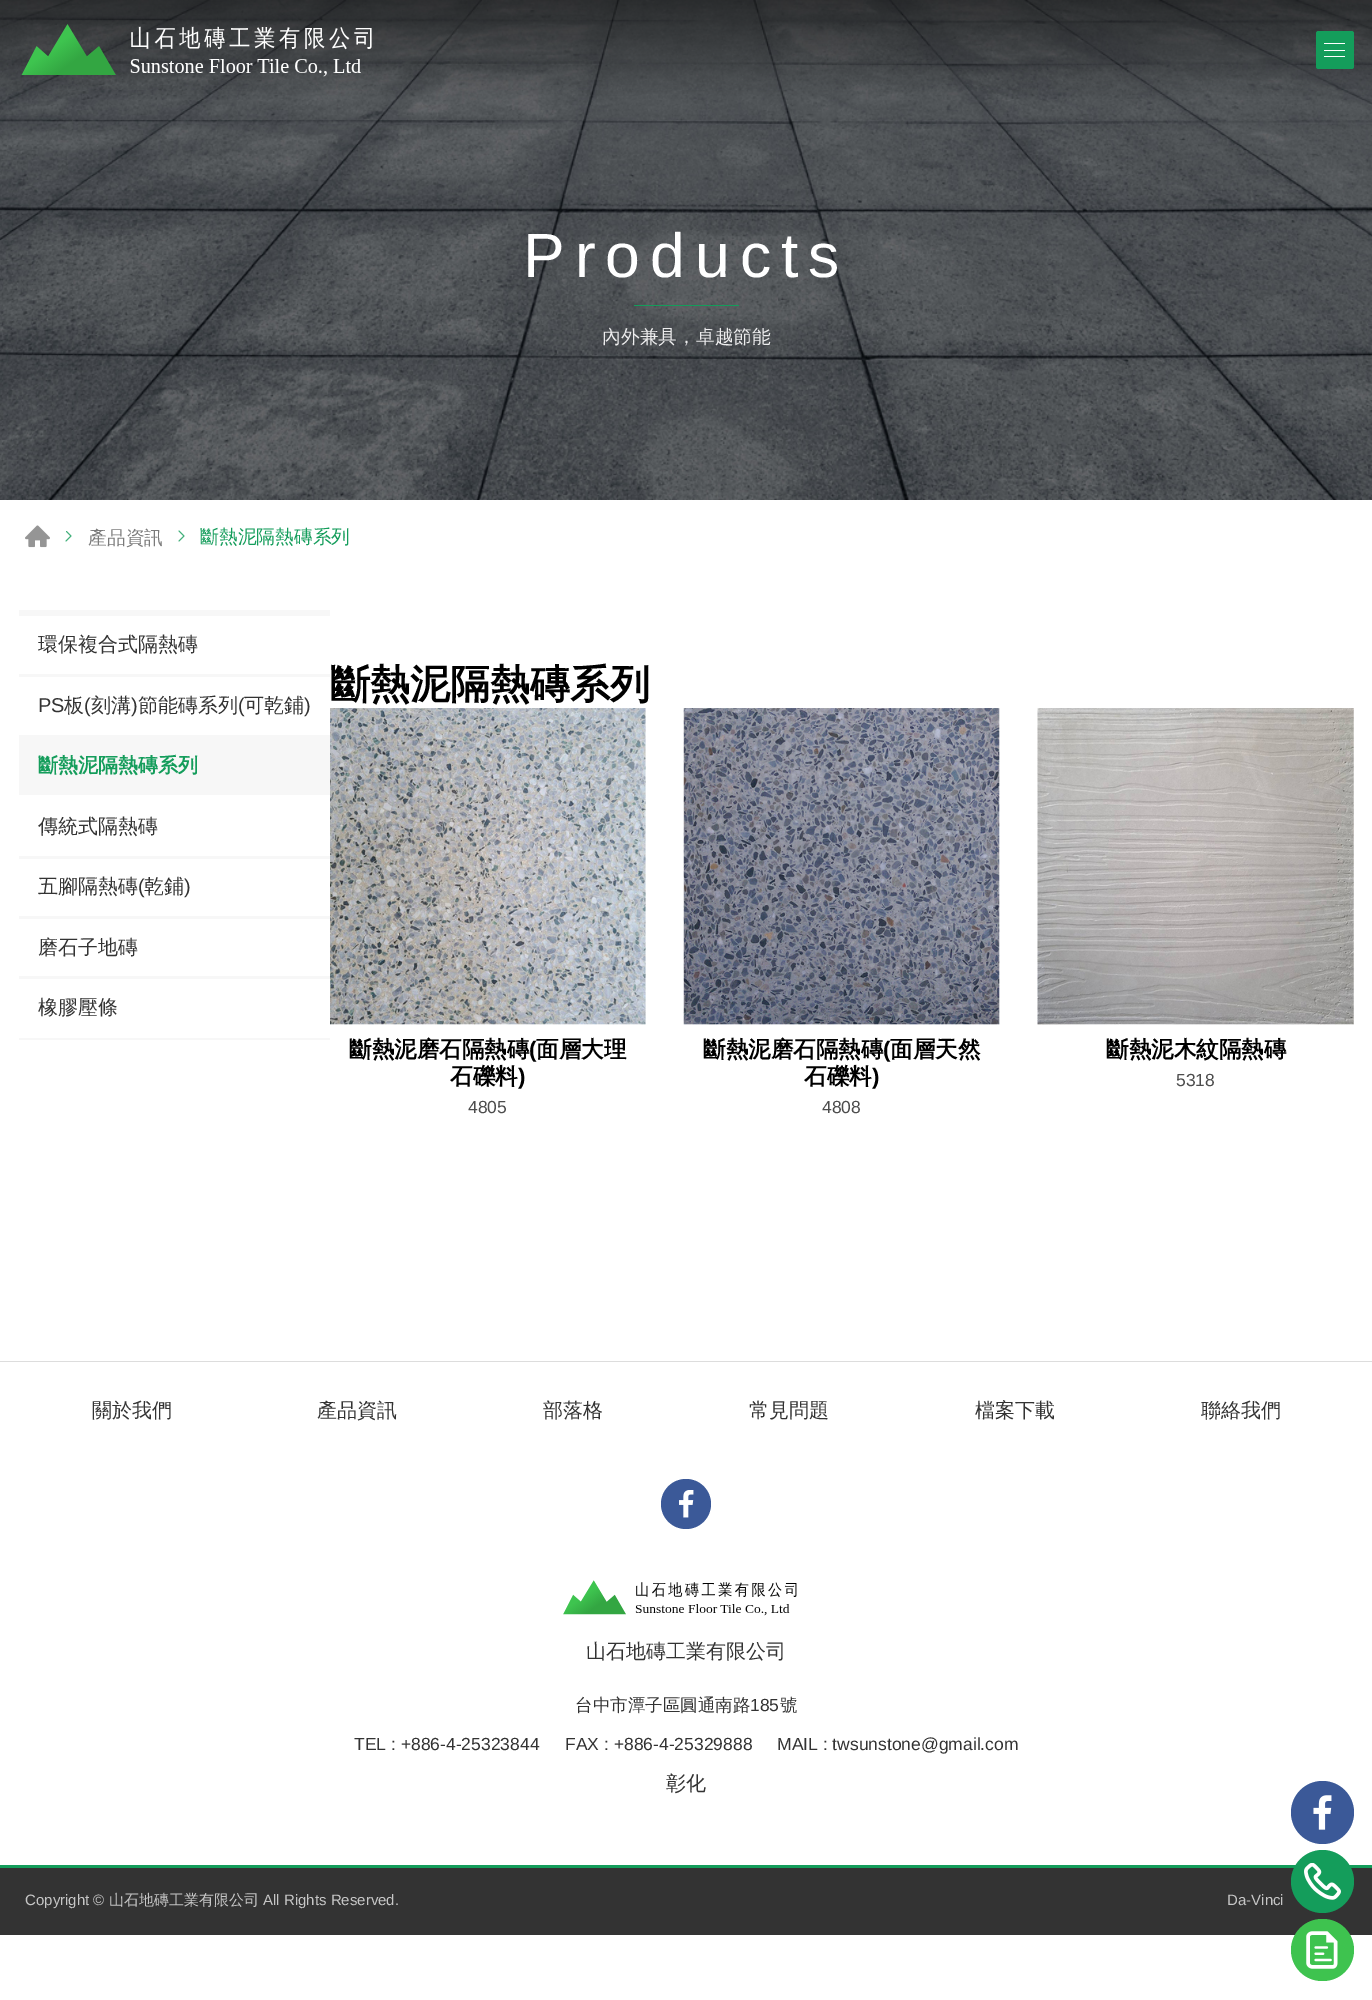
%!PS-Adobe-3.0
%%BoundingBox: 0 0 1372 2000
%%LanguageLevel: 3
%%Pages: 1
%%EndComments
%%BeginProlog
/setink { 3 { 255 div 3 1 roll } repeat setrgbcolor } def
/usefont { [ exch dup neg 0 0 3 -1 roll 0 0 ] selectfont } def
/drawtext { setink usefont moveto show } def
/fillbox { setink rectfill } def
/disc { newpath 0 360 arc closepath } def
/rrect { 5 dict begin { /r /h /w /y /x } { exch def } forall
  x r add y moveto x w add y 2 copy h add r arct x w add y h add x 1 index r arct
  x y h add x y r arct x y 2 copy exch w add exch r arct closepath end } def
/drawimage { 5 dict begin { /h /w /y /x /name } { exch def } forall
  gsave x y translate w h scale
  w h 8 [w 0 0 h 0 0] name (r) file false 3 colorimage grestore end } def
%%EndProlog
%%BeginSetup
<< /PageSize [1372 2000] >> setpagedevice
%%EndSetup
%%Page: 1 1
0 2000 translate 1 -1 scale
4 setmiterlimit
0 0 1372 2000 255 255 255 fillbox
(assets/img2.rgb) 0 0 1372 500 drawimage
(assets/img1.rgb) 21 24 351 53 drawimage
20 157 91 setink
1316 31 38 38 2.5 rrect fill
1324 43 21 1 255 255 255 fillbox
1324 50 21 1 255 255 255 fillbox
1324 56 21 1 255 255 255 fillbox
/LiberationSans-Regular 62.5 usefont
523 277 moveto 10 0 (Products) ashow
634 305 105 1 20 157 91 fillbox
(內外兼具，卓越節能) 602 343 /WenQuanYiZenHei-Medium 18.75 237 237 238 drawtext
(assets/img3.rgb) 25 525 25 23 drawimage
67 177 124 setink
1 setlinecap
1 setlinejoin
66 541 moveto 71 536 lineto 66.5 531.5 lineto stroke
(產品資訊) 88 544 /WenQuanYiZenHei-Medium 18.75 123 123 123 drawtext
67 177 124 setink
179 541 moveto 184 536 lineto 179 531 lineto stroke
(斷熱泥隔熱磚系列) 200 543 /WenQuanYiZenHei-Medium 18.75 20 157 91 drawtext
19 610 311 6 247 247 247 fillbox
19 674 311 3 247 247 247 fillbox
(環保複合式隔熱磚) 38 651 /WenQuanYiZenHei-Medium 20 51 51 51 drawtext
19 735 311 60 247 247 247 fillbox
(PS) 38 712 /LiberationSans-Regular 20 51 51 51 drawtext
(板) 64 712 /WenQuanYiZenHei-Medium 20 51 51 51 drawtext
(\() 84 712 /LiberationSans-Regular 20 51 51 51 drawtext
(刻溝) 91 712 /WenQuanYiZenHei-Medium 20 51 51 51 drawtext
(\)) 131 712 /LiberationSans-Regular 20 51 51 51 drawtext
(節能磚系列) 138 712 /WenQuanYiZenHei-Medium 20 51 51 51 drawtext
(\() 238 712 /LiberationSans-Regular 20 51 51 51 drawtext
(可乾鋪) 244 712 /WenQuanYiZenHei-Medium 20 51 51 51 drawtext
(\)) 304 712 /LiberationSans-Regular 20 51 51 51 drawtext
(斷熱泥隔熱磚系列) 38 772 /WenQuanYiZenHei-Bold 20 20 157 91 drawtext
19 856 311 3 247 247 247 fillbox
(傳統式隔熱磚) 38 833 /WenQuanYiZenHei-Medium 20 51 51 51 drawtext
19 916 311 3 247 247 247 fillbox
(五腳隔熱磚) 38 893 /WenQuanYiZenHei-Medium 20 51 51 51 drawtext
(\() 138 893 /LiberationSans-Regular 20 51 51 51 drawtext
(乾鋪) 144 893 /WenQuanYiZenHei-Medium 20 51 51 51 drawtext
(\)) 184 893 /LiberationSans-Regular 20 51 51 51 drawtext
19 976 311 3 247 247 247 fillbox
(磨石子地磚) 38 954 /WenQuanYiZenHei-Medium 20 51 51 51 drawtext
19 1038 311 2 247 247 247 fillbox
(橡膠壓條) 38 1014 /WenQuanYiZenHei-Medium 20 51 51 51 drawtext
(斷熱泥隔熱磚系列) 330 698 /WenQuanYiZenHei-Bold 40 0 0 0 drawtext
(assets/img4.rgb) 330 708 316 317 drawimage
(斷熱泥磨石隔熱磚) 349 1057 /WenQuanYiZenHei-Bold 22.5 0 0 0 drawtext
(\() 529 1057 /LiberationSans-Bold 22.5 0 0 0 drawtext
(面層大理) 536 1057 /WenQuanYiZenHei-Bold 22.5 0 0 0 drawtext
(石礫料) 450 1084 /WenQuanYiZenHei-Bold 22.5 0 0 0 drawtext
(\)) 518 1084 /LiberationSans-Bold 22.5 0 0 0 drawtext
(4805) 468 1113 /LiberationSans-Regular 17.5 77 77 77 drawtext
(assets/img5.rgb) 683 708 317 317 drawimage
(斷熱泥磨石隔熱磚) 703 1057 /WenQuanYiZenHei-Bold 22.5 0 0 0 drawtext
(\() 883 1057 /LiberationSans-Bold 22.5 0 0 0 drawtext
(面層天然) 890 1057 /WenQuanYiZenHei-Bold 22.5 0 0 0 drawtext
(石礫料) 804 1084 /WenQuanYiZenHei-Bold 22.5 0 0 0 drawtext
(\)) 872 1084 /LiberationSans-Bold 22.5 0 0 0 drawtext
(4808) 822 1113 /LiberationSans-Regular 17.5 77 77 77 drawtext
(assets/img6.rgb) 1037 708 317 317 drawimage
(斷熱泥木紋隔熱磚) 1106 1057 /WenQuanYiZenHei-Bold 22.5 0 0 0 drawtext
(5318) 1176 1086 /LiberationSans-Regular 17.5 77 77 77 drawtext
0 1361 1372 1 221 221 221 fillbox
(關於我們) 92 1417 /WenQuanYiZenHei-Medium 20 51 51 51 drawtext
(產品資訊) 317 1417 /WenQuanYiZenHei-Medium 20 51 51 51 drawtext
(部落格) 543 1417 /WenQuanYiZenHei-Medium 20 51 51 51 drawtext
(常見問題) 749 1417 /WenQuanYiZenHei-Medium 20 51 51 51 drawtext
(檔案下載) 975 1417 /WenQuanYiZenHei-Medium 20 51 51 51 drawtext
(聯絡我們) 1201 1417 /WenQuanYiZenHei-Medium 20 51 51 51 drawtext
59 89 152 setink
686 1504 25 disc fill
(assets/img7.rgb) 679 1490 15 28 drawimage
(assets/img8.rgb) 563 1580 234 36 drawimage
(山石地磚工業有限公司) 586 1658 /WenQuanYiZenHei-Medium 20 51 51 51 drawtext
(台中市潭子區圓通南路) 575 1711 /WenQuanYiZenHei-Medium 17.5 51 51 51 drawtext
(185) 750 1711 /LiberationSans-Regular 17.5 51 51 51 drawtext
(號) 780 1711 /WenQuanYiZenHei-Medium 17.5 51 51 51 drawtext
(TEL : +886-4-25323844) 354 1750 /LiberationSans-Regular 17.5 51 51 51 drawtext
(FAX : +886-4-25329888) 565 1750 /LiberationSans-Regular 17.5 51 51 51 drawtext
(MAIL : twsunstone@gmail.com) 777 1750 /LiberationSans-Regular 17.5 51 51 51 drawtext
(彰化) 666 1790 /WenQuanYiZenHei-Medium 20 51 51 51 drawtext
0 1868 1372 67 51 51 51 fillbox
0 1865 1372 3 20 157 91 fillbox
(Copyright ©) 25 1905 /LiberationSans-Regular 15 198 198 198 drawtext
(山石地磚工業有限公司) 109 1905 /WenQuanYiZenHei-Medium 15 198 198 198 drawtext
(All Rights Reserved.) 263 1905 /LiberationSans-Regular 15 198 198 198 drawtext
(Da-Vinci) 1227 1905 /LiberationSans-Regular 15 198 198 198 drawtext
59 89 152 setink
1322.5 1812.5 31.5 disc fill
(assets/img9.rgb) 1313 1795 19 35 drawimage
20 157 91 setink
1322.5 1881.5 31.5 disc fill
(assets/img10.rgb) 1304 1863 37 37 drawimage
62 195 79 setink
1291 1919 63 62 31 rrect fill
(assets/img11.rgb) 1306 1931 32 38 drawimage
showpage
%%EOF
